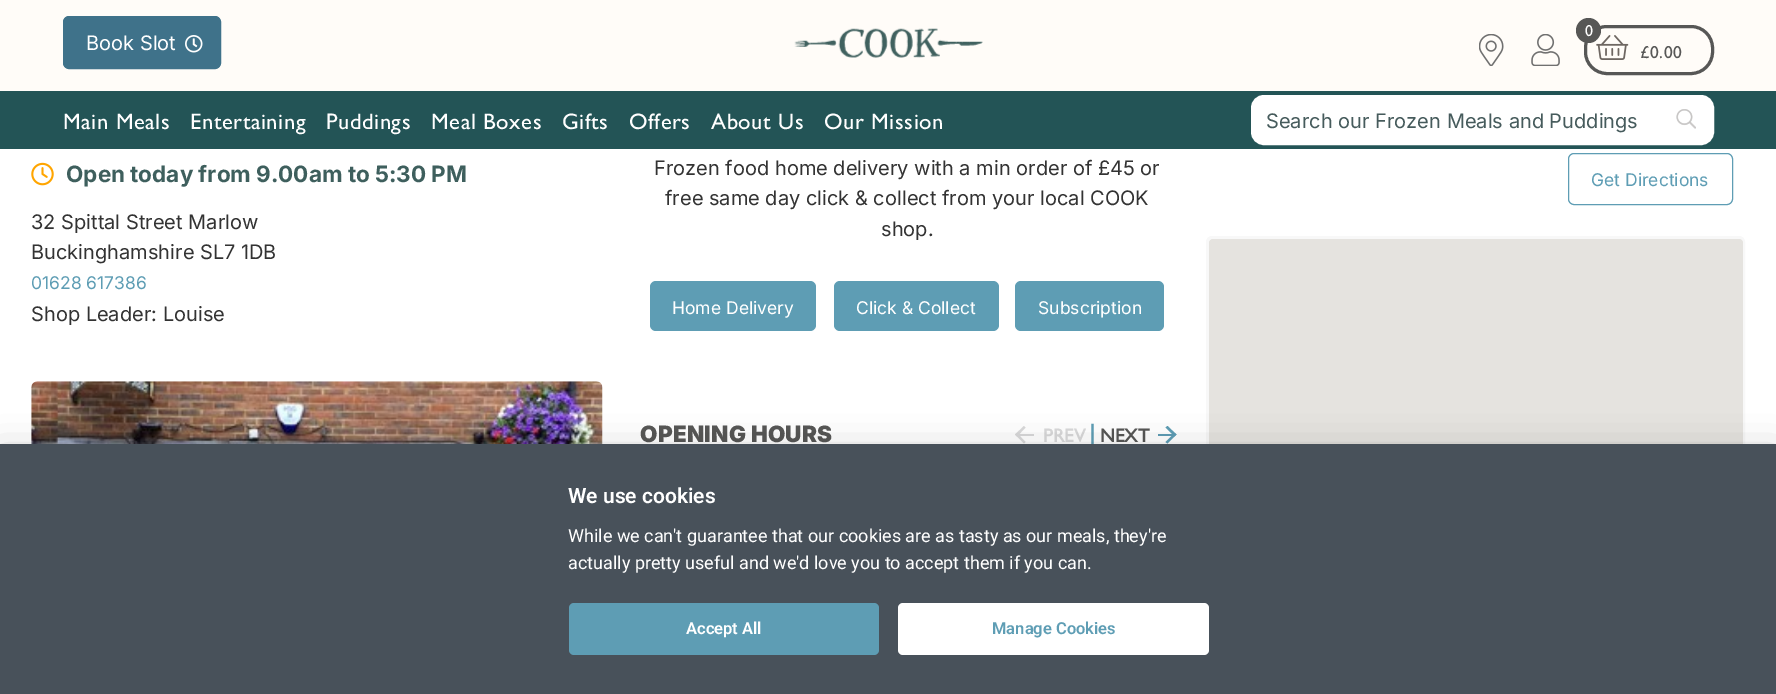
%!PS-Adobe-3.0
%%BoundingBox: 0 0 1776 694
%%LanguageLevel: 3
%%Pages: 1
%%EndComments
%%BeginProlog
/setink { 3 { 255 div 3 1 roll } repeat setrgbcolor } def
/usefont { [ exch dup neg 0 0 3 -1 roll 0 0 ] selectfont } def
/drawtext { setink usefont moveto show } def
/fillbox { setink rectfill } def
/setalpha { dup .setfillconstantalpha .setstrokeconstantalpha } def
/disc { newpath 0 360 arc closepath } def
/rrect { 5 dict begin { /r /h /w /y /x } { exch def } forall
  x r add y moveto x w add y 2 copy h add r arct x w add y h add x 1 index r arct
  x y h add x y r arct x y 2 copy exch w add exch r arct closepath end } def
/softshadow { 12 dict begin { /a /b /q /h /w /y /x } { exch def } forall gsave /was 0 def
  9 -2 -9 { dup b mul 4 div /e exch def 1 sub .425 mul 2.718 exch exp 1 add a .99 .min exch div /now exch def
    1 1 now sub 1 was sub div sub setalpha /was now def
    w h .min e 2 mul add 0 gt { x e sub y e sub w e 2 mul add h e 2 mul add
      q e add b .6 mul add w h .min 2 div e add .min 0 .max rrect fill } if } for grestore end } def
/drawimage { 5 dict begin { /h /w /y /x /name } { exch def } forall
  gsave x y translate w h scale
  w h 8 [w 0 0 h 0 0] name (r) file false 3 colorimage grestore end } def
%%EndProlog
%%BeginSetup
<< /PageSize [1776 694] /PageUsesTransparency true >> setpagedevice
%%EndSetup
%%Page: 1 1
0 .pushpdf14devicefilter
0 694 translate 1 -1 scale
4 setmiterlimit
0 0 1776 694 255 255 255 fillbox
0 0 1776 91 255 252 248 fillbox
63 114 138 setink
63.5 16.5 157 52 5.5 rrect gsave fill grestore
stroke
(Book Slot) 86 50 /Inter-Regular 20 255 255 255 drawtext
(assets/img1.rgb) 185 35 18 18 drawimage
(assets/img2.rgb) 794 28 189 30 drawimage
(assets/img3.rgb) 1479 34 25 32 drawimage
(assets/img4.rgb) 1531 34 29 32 drawimage
87 87 86 setink
3 setlinewidth
1585.5 26.5 127 47 21.5 rrect stroke
1588.5 30.5 12.5 disc fill
(0) 1585 36 /GillSans-Medium 16 255 255 255 drawtext
(assets/img5.rgb) 1596 35 33 25 drawimage
/GillSans-Medium 17.5 usefont
87 87 86 setink
1640 58 moveto 0.6 0 (£0.00) ashow
0 91 1776 58 35 84 86 fillbox
/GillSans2-Medium 22.5 usefont
255 255 255 setink
63 129 moveto 0.6 0 (Main Meals) ashow
190 129 moveto 0.6 0 (Entertaining) ashow
326 129 moveto 0.6 0 (Puddings) ashow
431 129 moveto 0.6 0 (Meal Boxes) ashow
562 129 moveto 0.6 0 (Gifts) ashow
629 129 moveto 0.6 0 (Offers) ashow
711 129 moveto 0.6 0 (About Us) ashow
824 129 moveto 0.6 0 (Our Mission) ashow
1252.5 96.5 460 47 11.5 rrect gsave fill grestore
stroke
(Search our Frozen Meals and Puddings) 1266 128 /Inter-Regular 20 70 91 92 drawtext
(assets/img6.rgb) 1676 109 20 20 drawimage
(assets/img7.rgb) 31 162 23 24 drawimage
(Open today from 9.00am to 5:30 PM) 66 182 /Inter-Bold 22.5 62 95 93 drawtext
(Frozen food home delivery with a min order of £45 or) 654 175 /Inter-Regular 20 51 51 51 drawtext
(free same day click & collect from your local COOK) 665 205 /Inter-Regular 20 51 51 51 drawtext
(shop.) 881 236 /Inter-Regular 20 51 51 51 drawtext
94 157 180 setink
650 281 166 50 6 rrect fill
(Home Delivery) 672 314 /Inter-Regular 17.5 255 255 255 drawtext
94 157 180 setink
834 281 165 50 6 rrect fill
(Click & Collect) 856 314 /Inter-Regular 17.5 255 255 255 drawtext
94 157 180 setink
1015 281 149 50 6 rrect fill
(Subscription) 1038 314 /Inter-Regular 17.5 255 255 255 drawtext
94 157 180 setink
1 setlinewidth
1568.5 153.5 164 51 5.5 rrect stroke
(Get Directions) 1591 186 /Inter-Regular 17.5 94 157 180 drawtext
248 248 248 setink
3 setlinewidth
1207.5 237.5 536 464 4.5 rrect stroke
229 227 223 setink
1209 239 534 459 4 rrect fill
(32 Spittal Street Marlow) 31 229 /Inter-Regular 20 51 51 51 drawtext
(Buckinghamshire SL7 1DB) 31 259 /Inter-Regular 20 51 51 51 drawtext
(01628 617386) 31 289 /Inter-Regular 17.5 94 157 180 drawtext
(Shop Leader: Louise) 31 321 /Inter-Regular 20 51 51 51 drawtext
(assets/img8.rgb) 31 381 572 63 drawimage
/Inter-Black 22.5 usefont
87 87 86 setink
640 442 moveto 0.25 0 (OPENING HOURS) ashow
217 217 217 setink
1015 434.5 moveto 1024 426 lineto 1025.5 427.5 lineto 1017 436.5 lineto closepath fill
1015 434.5 moveto 1017 433 lineto 1025.5 442 lineto 1024 443.5 lineto closepath fill
1019 434 15 2 217 217 217 fillbox
(PREV) 1043 442 /GillSans-Bold 19 217 217 217 drawtext
(|) 1089 442 /Inter-Bold 19 94 157 180 drawtext
(NEXT) 1100 442 /GillSans-Bold 19 87 87 86 drawtext
94 157 180 setink
1176.5 434.5 moveto 1167.5 443.5 lineto 1165.5 442 lineto 1174.5 433 lineto closepath fill
1176.5 434.5 moveto 1174.5 436.5 lineto 1165.5 427.5 lineto 1167.5 426 lineto closepath fill
1158 434 15 2 94 157 180 fillbox
2 2 3 setink
0 456 1776 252 0 19 0.28 softshadow
0 444 1776 250 72 81 90 fillbox
(We use cookies) 568 503 /Roboto-SemiBold 21 255 255 255 drawtext
(While we can't guarantee that our cookies are as tasty as our meals, they're) 568 542 /Roboto-Regular 18 255 255 255 drawtext
(actually pretty useful and we'd love you to accept them if you can.) 568 569 /Roboto-Regular 18 255 255 255 drawtext
94 157 180 setink
569 603 310 52 5 rrect fill
(Accept All) 686 634 /Roboto-SemiBold 16.5 255 255 255 drawtext
898 603 311 52 5 rrect fill
(Manage Cookies) 992 634 /Roboto-SemiBold 16.5 94 157 180 drawtext
.poppdf14devicefilter showpage
%%EOF
